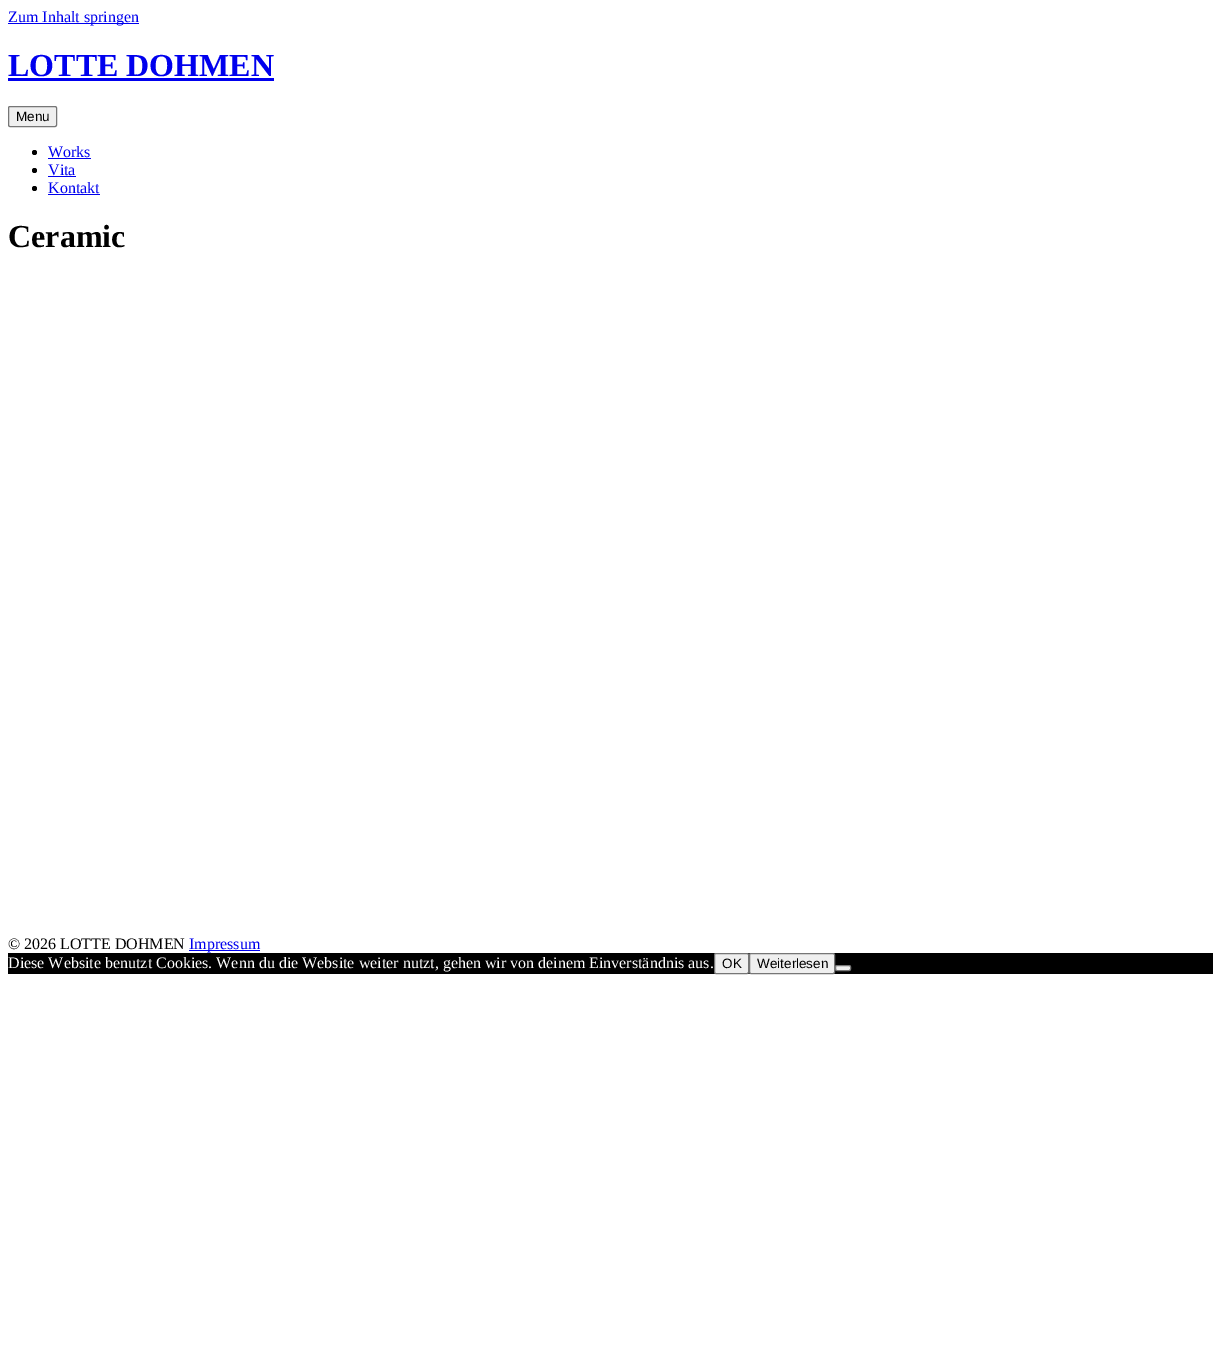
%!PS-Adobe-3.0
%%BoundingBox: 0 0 1221 1351
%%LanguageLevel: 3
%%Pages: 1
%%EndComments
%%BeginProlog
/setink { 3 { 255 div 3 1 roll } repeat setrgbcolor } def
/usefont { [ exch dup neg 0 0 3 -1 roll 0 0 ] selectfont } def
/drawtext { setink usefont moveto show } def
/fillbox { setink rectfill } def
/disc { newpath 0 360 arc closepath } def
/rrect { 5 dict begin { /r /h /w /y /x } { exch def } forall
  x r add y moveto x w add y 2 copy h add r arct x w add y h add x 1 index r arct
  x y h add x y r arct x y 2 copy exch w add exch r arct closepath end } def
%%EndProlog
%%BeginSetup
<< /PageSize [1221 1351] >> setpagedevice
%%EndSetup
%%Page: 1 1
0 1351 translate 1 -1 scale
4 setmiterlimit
0 0 1221 1351 255 255 255 fillbox
8 23 131 1 0 0 238 fillbox
(Zum Inhalt springen) 8 22 /LiberationSerif-Regular 16 0 0 238 drawtext
(LOTTE DOHMEN) 8 76 /LiberationSerif-Bold 32 0 0 238 drawtext
8 78 266 3 0 0 238 fillbox
239 239 239 setink
8.5 106.5 48 20 1.5 rrect gsave fill grestore
118 118 118 setink
stroke
(Menu) 16 121 /LiberationSans-Regular 13.5 0 0 0 drawtext
34.5 152.5 2.5 disc fill
(Works) 48 157 /LiberationSerif-Regular 16 0 0 238 drawtext
48 158 43 1 0 0 238 fillbox
0 0 0 setink
34.5 170.5 2.5 disc fill
(Vita) 48 175 /LiberationSerif-Regular 16 0 0 238 drawtext
48 176 28 1 0 0 238 fillbox
0 0 0 setink
34.5 188.5 2.5 disc fill
(Kontakt) 48 193 /LiberationSerif-Regular 16 0 0 238 drawtext
48 194 52 1 0 0 238 fillbox
(Ceramic) 8 247 /LiberationSerif-Bold 32 0 0 0 drawtext
(© 2026 LOTTE DOHMEN) 8 949 /LiberationSerif-Regular 16 0 0 0 drawtext
189 950 71 1 0 0 238 fillbox
(Impressum) 189 949 /LiberationSerif-Regular 16 0 0 238 drawtext
8 953 1205 21 0 0 0 fillbox
(Diese Website benutzt Cookies. Wenn du die Website weiter nutzt, gehen wir von deinem Einverständnis aus.) 8 968 /LiberationSerif-Regular 16 255 255 255 drawtext
239 239 239 setink
714.5 953.5 34 20 1.5 rrect gsave fill grestore
118 118 118 setink
stroke
(OK) 722 968 /LiberationSans-Regular 13.5 0 0 0 drawtext
239 239 239 setink
749.5 953.5 85 20 1.5 rrect gsave fill grestore
118 118 118 setink
stroke
(Weiterlesen) 757 968 /LiberationSans-Regular 13.5 0 0 0 drawtext
239 239 239 setink
835.5 965.5 15 5 1.5 rrect gsave fill grestore
118 118 118 setink
stroke
showpage
%%EOF
